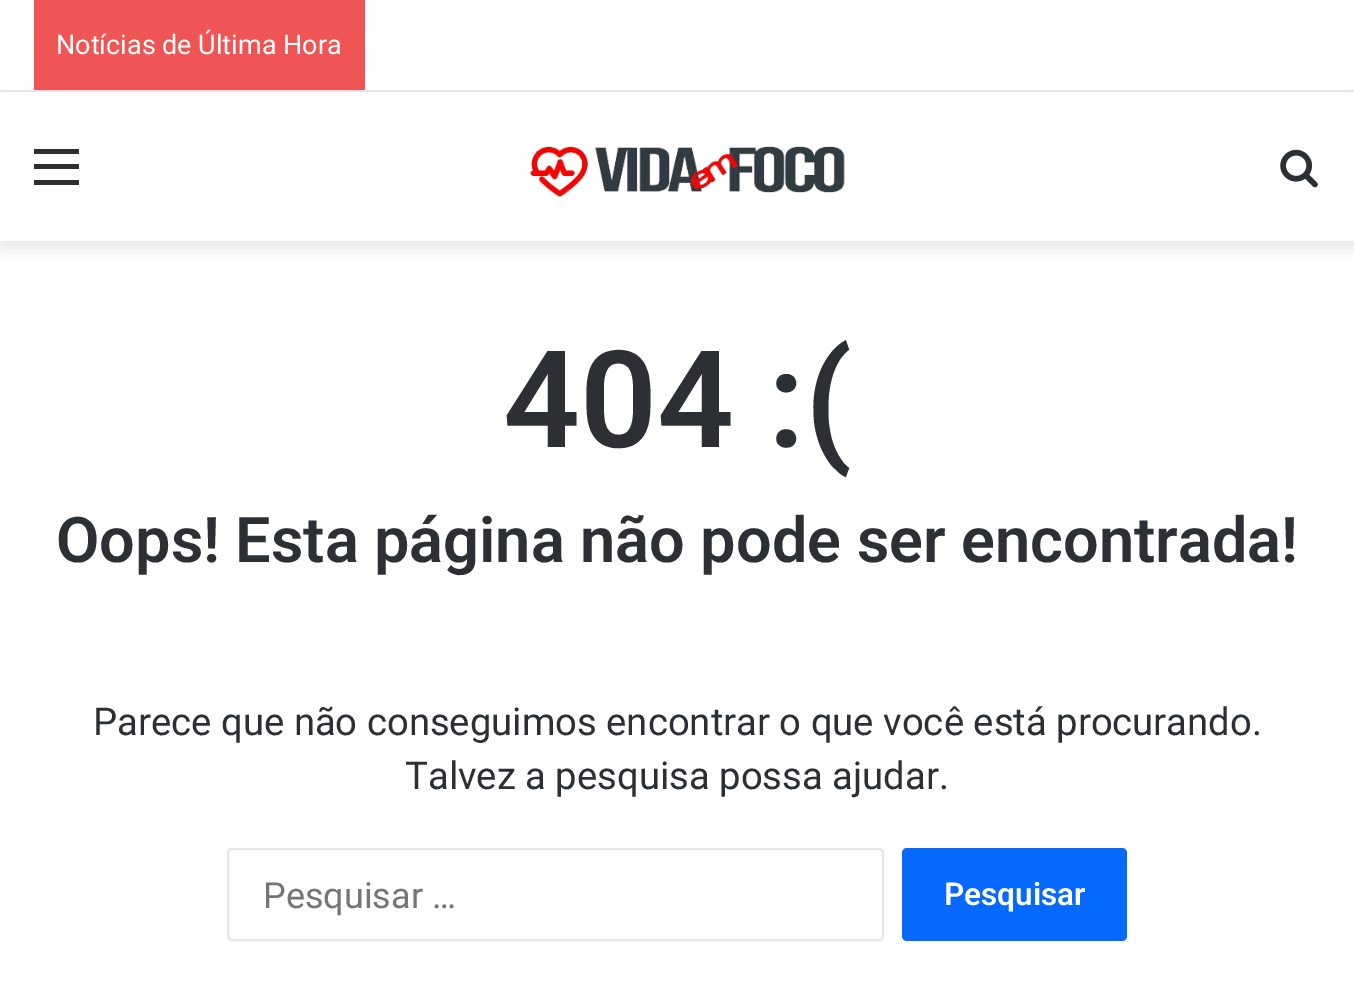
%!PS-Adobe-3.0
%%BoundingBox: 0 0 1354 987
%%LanguageLevel: 3
%%Pages: 1
%%EndComments
%%BeginProlog
/setink { 3 { 255 div 3 1 roll } repeat setrgbcolor } def
/usefont { [ exch dup neg 0 0 3 -1 roll 0 0 ] selectfont } def
/drawtext { setink usefont moveto show } def
/fillbox { setink rectfill } def
/setalpha { dup .setfillconstantalpha .setstrokeconstantalpha } def
/rrect { 5 dict begin { /r /h /w /y /x } { exch def } forall
  x r add y moveto x w add y 2 copy h add r arct x w add y h add x 1 index r arct
  x y h add x y r arct x y 2 copy exch w add exch r arct closepath end } def
/softshadow { 12 dict begin { /a /b /q /h /w /y /x } { exch def } forall gsave /was 0 def
  9 -2 -9 { dup b mul 4 div /e exch def 1 sub .425 mul 2.718 exch exp 1 add a .99 .min exch div /now exch def
    1 1 now sub 1 was sub div sub setalpha /was now def
    w h .min e 2 mul add 0 gt { x e sub y e sub w e 2 mul add h e 2 mul add
      q e add b .6 mul add w h .min 2 div e add .min 0 .max rrect fill } if } for grestore end } def
/drawimage { 5 dict begin { /h /w /y /x /name } { exch def } forall
  gsave x y translate w h scale
  w h 8 [w 0 0 h 0 0] name (r) file false 3 colorimage grestore end } def
%%EndProlog
%%BeginSetup
<< /PageSize [1354 987] /PageUsesTransparency true >> setpagedevice
%%EndSetup
%%Page: 1 1
0 .pushpdf14devicefilter
0 987 translate 1 -1 scale
4 setmiterlimit
0 0 1354 987 255 255 255 fillbox
0 0 0 setink
0 99 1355 149 0 8 0.1 softshadow
8 89 1339 1 255 255 255 fillbox
0 90 1354 2 230 230 230 fillbox
34 0 331 90 240 85 85 fillbox
(Notícias de Última Hora) 56 54 /Roboto-Regular 27 255 255 255 drawtext
0 92 1354 149 255 255 255 fillbox
34 164 45 5 44 47 52 fillbox
34 149 45 5 44 47 52 fillbox
34 180 45 5 44 47 52 fillbox
(assets/img1.rgb) 530 146 315 51 drawimage
(assets/img2.rgb) 1280 149 38 39 drawimage
(404 :\() 503 447 /Roboto-SemiBold 135 44 47 52 drawtext
(Oops! Esta página não pode ser encontrada!) 56 562 /Roboto-SemiBold 63 44 47 52 drawtext
(Parece que não conseguimos encontrar o que você está procurando.) 93 735 /Roboto-Regular 38.25 44 47 52 drawtext
(Talvez a pesquisa possa ajudar.) 405 789 /Roboto-Regular 38.25 44 47 52 drawtext
230 230 230 setink
2 setlinewidth
228 849 655 91 4 rrect stroke
(Pesquisar …) 263 908 /Roboto-Regular 36 117 117 117 drawtext
6 105 255 setink
902 848 225 93 5 rrect fill
(Pesquisar) 944 905 /Roboto-SemiBold 31.5 255 255 255 drawtext
.poppdf14devicefilter showpage
%%EOF
